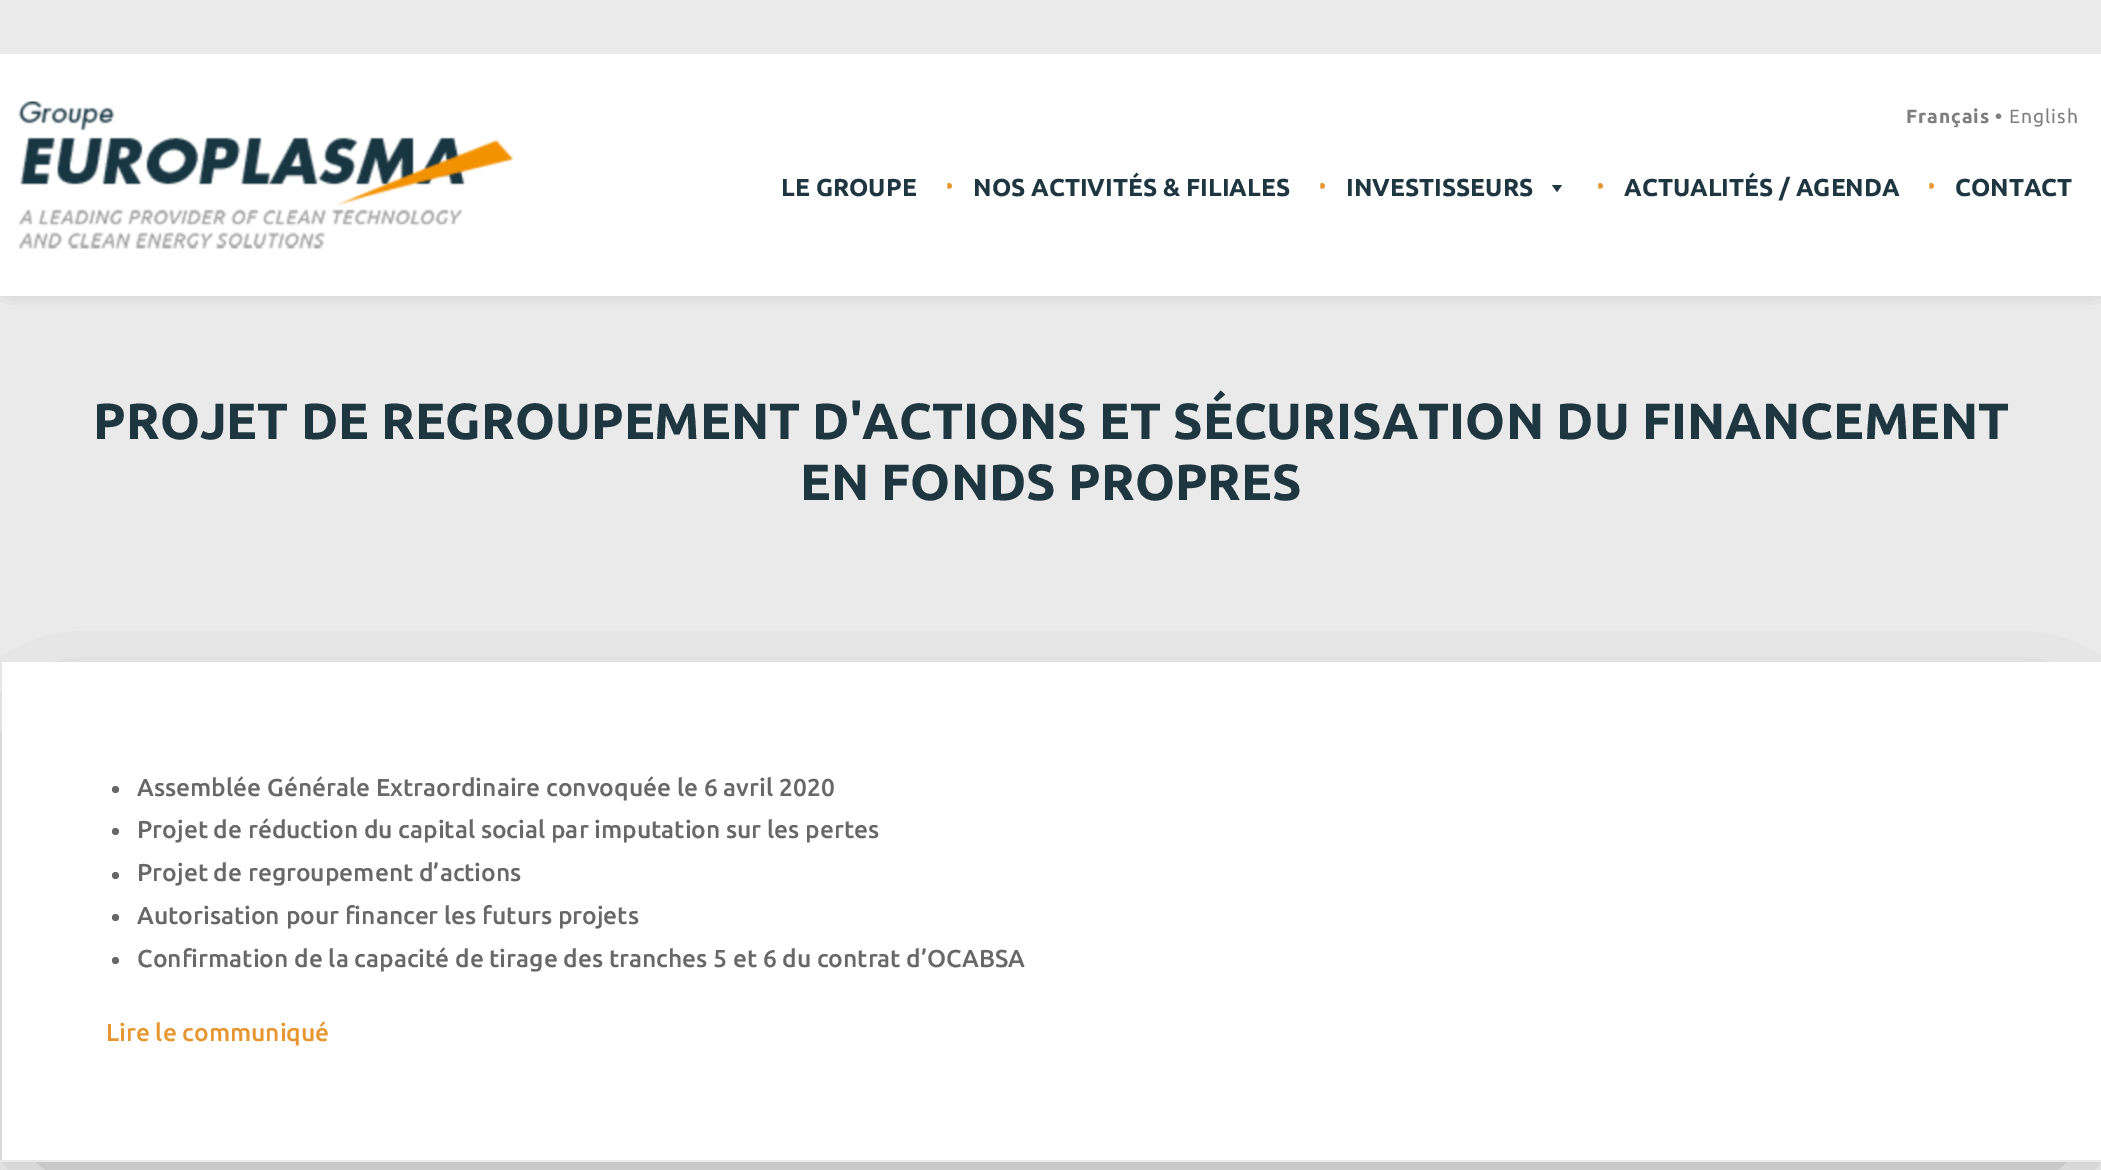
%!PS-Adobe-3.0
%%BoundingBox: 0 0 2101 1170
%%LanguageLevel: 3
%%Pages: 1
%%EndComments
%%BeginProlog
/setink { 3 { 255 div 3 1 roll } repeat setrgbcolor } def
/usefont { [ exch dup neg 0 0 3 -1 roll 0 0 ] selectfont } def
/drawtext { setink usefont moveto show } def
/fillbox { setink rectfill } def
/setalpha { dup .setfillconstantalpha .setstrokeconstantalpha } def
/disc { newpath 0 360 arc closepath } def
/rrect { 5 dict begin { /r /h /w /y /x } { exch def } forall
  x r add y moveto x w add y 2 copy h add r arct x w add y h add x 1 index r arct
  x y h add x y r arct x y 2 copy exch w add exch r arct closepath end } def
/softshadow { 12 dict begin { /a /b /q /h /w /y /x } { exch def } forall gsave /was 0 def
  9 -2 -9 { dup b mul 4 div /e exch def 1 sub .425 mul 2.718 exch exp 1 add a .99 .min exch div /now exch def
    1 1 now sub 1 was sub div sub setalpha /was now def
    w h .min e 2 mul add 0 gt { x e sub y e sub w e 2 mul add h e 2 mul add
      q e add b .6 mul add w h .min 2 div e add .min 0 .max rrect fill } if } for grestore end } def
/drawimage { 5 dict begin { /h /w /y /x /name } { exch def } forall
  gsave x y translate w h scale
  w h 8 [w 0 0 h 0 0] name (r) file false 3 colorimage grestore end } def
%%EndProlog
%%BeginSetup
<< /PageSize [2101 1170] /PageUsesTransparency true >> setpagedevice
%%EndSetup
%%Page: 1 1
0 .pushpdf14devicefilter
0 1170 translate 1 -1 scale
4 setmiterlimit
0 0 2101 1170 234 234 234 fillbox
0 0 0 setink
9 79 2086 206 0 9 0.6 softshadow
0 54 2101 242 255 255 255 fillbox
(assets/img1.rgb) 18 101 496 148 drawimage
/Ubuntu-Bold 19.25 usefont
127 127 127 setink
1906 123 moveto 1 0 (Français) ashow
1995 123 moveto 1 0 (•) ashow
/Ubuntu-Regular 19.25 usefont
2009 123 moveto 1 0 (English) ashow
(LE GROUPE) 781 196 /Ubuntu-Bold 24.5 30 54 64 drawtext
(•) 945 194 /Ubuntu-Regular 23 230 151 49 drawtext
255 255 255 setink
2 setlinewidth
946 152 371 68 34 rrect stroke
(NOS ACTIVITÉS & FILIALES) 973 196 /Ubuntu-Bold 24.5 30 54 64 drawtext
(•) 1318 194 /Ubuntu-Regular 23 230 151 49 drawtext
255 255 255 setink
1319 152 276 68 34 rrect stroke
(INVESTISSEURS) 1346 196 /Ubuntu-Bold 24.5 30 54 64 drawtext
1562 185 moveto 1557 192 lineto 1552 185 lineto closepath fill
(•) 1596 194 /Ubuntu-Regular 23 230 151 49 drawtext
255 255 255 setink
1597 152 329 68 34 rrect stroke
(ACTUALITÉS / AGENDA) 1624 196 /Ubuntu-Bold 24.5 30 54 64 drawtext
(•) 1927 194 /Ubuntu-Regular 23 230 151 49 drawtext
255 255 255 setink
1928 152 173 68 34 rrect stroke
(CONTACT) 1955 196 /Ubuntu-Bold 24.5 30 54 64 drawtext
(PROJET DE REGROUPEMENT D'ACTIONS ET SÉCURISATION DU FINANCEMENT) 93 439 /Ubuntu-Bold 50.75 30 54 64 drawtext
(EN FONDS PROPRES) 800 500 /Ubuntu-Bold 50.75 30 54 64 drawtext
0 0 0 setink
54 749 1995 394 0 52.5 0.45 softshadow
2 662 2099 498 255 255 255 fillbox
104 104 104 setink
115.5 789.5 3.5 disc fill
(Assemblée Générale Extraordinaire convoquée le 6 avril 2020) 137 796 /Ubuntu-Medium 24.5 104 104 104 drawtext
115.5 831.5 3.5 disc fill
(Projet de réduction du capital social par imputation sur les pertes) 137 838 /Ubuntu-Medium 24.5 104 104 104 drawtext
115.5 875.5 3.5 disc fill
(Projet de regroupement d’actions) 137 881 /Ubuntu-Medium 24.5 104 104 104 drawtext
115.5 917.5 3.5 disc fill
(Autorisation pour financer les futurs projets) 137 924 /Ubuntu-Medium 24.5 104 104 104 drawtext
115.5 960.5 3.5 disc fill
(Confirmation de la capacité de tirage des tranches 5 et 6 du contrat d’OCABSA) 137 967 /Ubuntu-Medium 24.5 104 104 104 drawtext
(Lire le communiqué) 106 1041 /Ubuntu-Medium 24.5 230 151 49 drawtext
0 1160 2101 2 234 234 234 fillbox
.poppdf14devicefilter showpage
%%EOF
